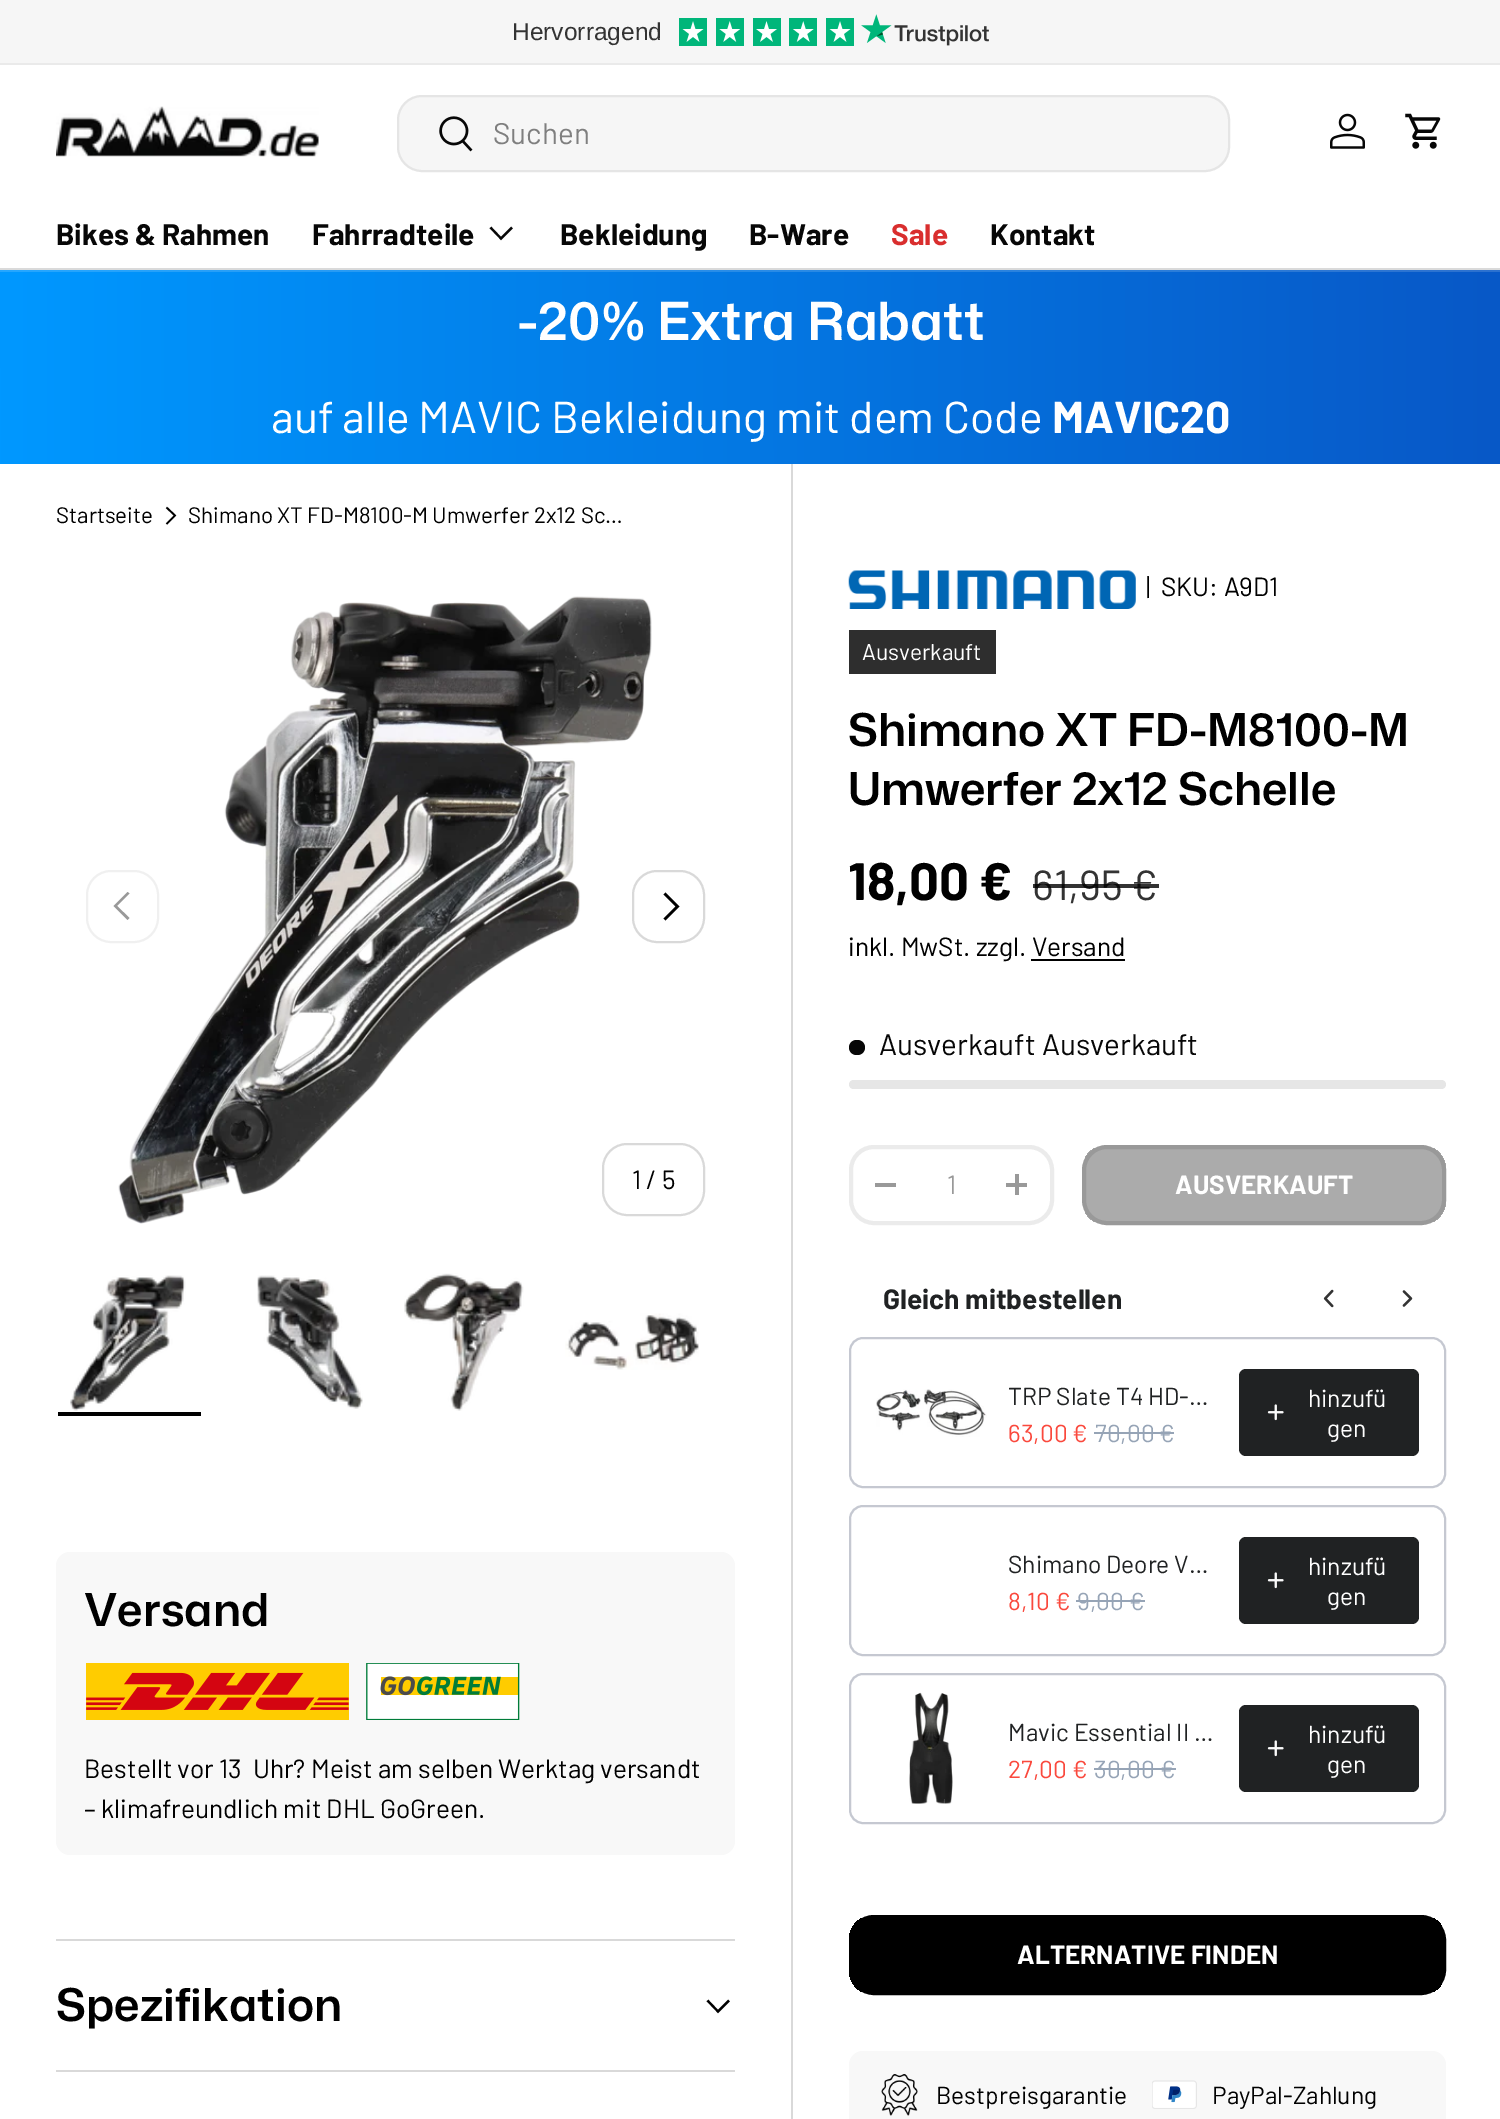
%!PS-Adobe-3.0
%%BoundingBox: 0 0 1500 2119
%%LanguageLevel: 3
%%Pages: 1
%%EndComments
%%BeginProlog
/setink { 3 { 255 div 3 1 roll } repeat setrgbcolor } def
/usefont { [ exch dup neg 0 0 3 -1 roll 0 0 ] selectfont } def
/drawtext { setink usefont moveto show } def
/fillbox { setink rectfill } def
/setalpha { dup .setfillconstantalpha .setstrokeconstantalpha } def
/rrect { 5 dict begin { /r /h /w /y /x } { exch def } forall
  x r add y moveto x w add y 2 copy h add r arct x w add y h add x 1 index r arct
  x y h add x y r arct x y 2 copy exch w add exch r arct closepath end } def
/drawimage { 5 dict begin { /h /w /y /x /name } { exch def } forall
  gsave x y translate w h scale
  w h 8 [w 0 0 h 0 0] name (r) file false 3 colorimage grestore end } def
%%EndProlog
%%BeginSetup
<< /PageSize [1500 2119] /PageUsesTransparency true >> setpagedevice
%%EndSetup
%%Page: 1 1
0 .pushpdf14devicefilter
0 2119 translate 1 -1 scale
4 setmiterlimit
0 0 1500 2119 255 255 255 fillbox
0 0 1500 63 246 246 246 fillbox
0 63 1500 2 234 234 234 fillbox
(Hervorragend) 512 40 /LiberationSans-Regular 24.5 51 51 51 drawtext
(assets/img1.rgb) 679 18 28 28 drawimage
(assets/img2.rgb) 716 18 28 28 drawimage
(assets/img3.rgb) 753 18 28 28 drawimage
(assets/img4.rgb) 789 18 28 28 drawimage
(assets/img1.rgb) 826 18 28 28 drawimage
(assets/img5.rgb) 861 14 128 32 drawimage
0 268 1500 2 218 218 218 fillbox
(assets/img6.rgb) 56 106 263 51 drawimage
246 246 246 setink
398 96 831 75 24 rrect gsave fill grestore
229 229 229 setink
2 setlinewidth
stroke
(assets/img7.rgb) 439 116 34 36 drawimage
(Suchen) 493 144 /Barlow-Regular 29.75 127 127 127 drawtext
(assets/img8.rgb) 1330 113 35 36 drawimage
(assets/img9.rgb) 1405 113 36 36 drawimage
(Bikes & Rahmen) 56 245 /Barlow-Bold 29.75 7 7 7 drawtext
(Fahrradteile) 312 245 /Barlow-Bold 29.75 7 7 7 drawtext
2.2 setlinewidth
512 227.5 moveto 501 238.5 lineto 490.5 227.5 lineto stroke
(Bekleidung) 560 245 /Barlow-Bold 29.75 7 7 7 drawtext
(B-Ware) 749 245 /Barlow-Bold 29.75 7 7 7 drawtext
(Sale) 891 245 /Barlow-Bold 29.75 217 46 46 drawtext
(Kontakt) 990 245 /Barlow-Bold 29.75 7 7 7 drawtext
gsave 0 272 moveto 1500 272 lineto 1500 464 lineto 0 464 lineto closepath clip newpath
<< /ShadingType 2 /ColorSpace /DeviceRGB /Coords [0 368 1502 367] /Extend [true true] /Function << /FunctionType 2 /Domain [0 1] /C0 [0 0.596 1] /C1 [0.031 0.345 0.78] /N 1 >> >> shfill grestore
gsave 0 270 moveto 1500 270 lineto 1500 272 lineto 0 272 lineto closepath clip newpath
<< /ShadingType 2 /ColorSpace /DeviceRGB /Coords [0 368 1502 367] /Extend [true true] /Function << /FunctionType 2 /Domain [0 1] /C0 [0.149 0.655 1] /C1 [0.176 0.443 0.812] /N 1 >> >> shfill grestore
(-20% Extra Rabatt) 517 340 /MonaSans-SemiBold 52.5 255 255 255 drawtext
(auf alle MAVIC Bekleidung mit dem Code) 271 433 /Barlow-Regular 44.6 255 255 255 drawtext
(MAVIC20) 1052 433 /Barlow-Bold 44.6 255 255 255 drawtext
(Startseite) 56 523 /Barlow-Regular 22.3 0 0 0 drawtext
1.7 setlinewidth
166.5 507.5 moveto 175 515.5 lineto 166.5 524 lineto stroke
(Shimano XT FD-M8100-M Umwerfer 2x12 Sc…) 188 523 /Barlow-Regular 22.3 0 0 0 drawtext
248 248 248 setink
56 1552 679 303 14 rrect fill
(Versand) 84 1626 /MonaSans-SemiBold 45.25 0 0 0 drawtext
(assets/img10.rgb) 86 1663 434 57 drawimage
(Bestellt vor 13 Uhr? Meist am selben Werktag versandt) 84 1778 /Barlow-Regular 26.25 0 0 0 drawtext
(– klimafreundlich mit DHL GoGreen.) 84 1818 /Barlow-Regular 26.25 0 0 0 drawtext
56 1939 679 2 217 217 217 fillbox
56 2070 679 2 217 217 217 fillbox
(Spezifikation) 56 2021 /MonaSans-SemiBold 45.25 0 0 0 drawtext
2.2 setlinewidth
729 2000.5 moveto 718 2011.5 lineto 707.5 2000.5 lineto stroke
(assets/img11.rgb) 118 596 534 628 drawimage
240 240 240 setink
2 setlinewidth
87 871 71 71 24 rrect stroke
153 153 153 setink
113.5 906 moveto 127.5 892 lineto 129.5 893.5 lineto 117 906 lineto 129.5 918 lineto 127.5 920 lineto closepath fill
217 217 217 setink
633 871 71 71 24 rrect stroke
0 0 0 setink
2.6 setlinewidth
664.5 893.5 moveto 677.5 906.5 lineto 664.5 919.5 lineto stroke
217 217 217 setink
2 setlinewidth
603 1144 101 71 24 rrect stroke
(1 / 5) 632 1189 /Barlow-Regular 26.25 0 0 0 drawtext
(assets/img12.rgb) 70 1275 116 136 drawimage
58 1412 143 4 0 0 0 fillbox
(assets/img13.rgb) 257 1275 106 134 drawimage
(assets/img14.rgb) 404 1273 120 138 drawimage
(assets/img15.rgb) 565 1313 134 57 drawimage
791 464 2 1655 217 217 217 fillbox
(assets/img16.rgb) 848 570 288 39 drawimage
(|) 1146 596 /Barlow-Regular 26.25 0 0 0 drawtext
(SKU: A9D1) 1161 596 /Barlow-Regular 26.25 0 0 0 drawtext
849 630 147 44 46 46 46 fillbox
(Ausverkauft) 862 660 /Barlow-Regular 22.75 255 255 255 drawtext
(Shimano XT FD-M8100-M) 848 746 /MonaSans-SemiBold 45.25 0 0 0 drawtext
(Umwerfer 2x12 Schelle) 848 805 /MonaSans-SemiBold 45.25 0 0 0 drawtext
(18,00 €) 848 900 /Barlow-Bold 52.5 0 0 0 drawtext
(61,95 €) 1032 900 /Barlow-Regular 42 51 51 51 drawtext
0.8 setalpha
1033 884 126 4 0 0 0 fillbox
1 setalpha
(inkl. MwSt. zzgl. Versand) 848 956 /Barlow-Regular 26.25 0 0 0 drawtext
1031 959 94 2 0 0 0 fillbox
7 7 7 setink
849 1040 16 15 7.5 rrect fill
(Ausverkauft Ausverkauft) 879 1055 /Barlow-Regular 29.75 7 7 7 drawtext
230 230 230 setink
849 1080 597 9 4.5 rrect fill
235 235 235 setink
4 setlinewidth
851 1147 201 76 23 rrect stroke
875 1183 21 4 153 153 153 fillbox
(1) 947 1194 /Barlow-Regular 26.25 153 153 153 drawtext
1006 1183 21 4 153 153 153 fillbox
1015 1174 4 21 153 153 153 fillbox
gsave
1082 1145 364 80 25 rrect clip newpath
gsave 1085 1148 moveto 1446 1148 lineto 1446 1222 lineto 1085 1222 lineto closepath clip newpath
<< /ShadingType 2 /ColorSpace /DeviceRGB /Coords [1108 1057 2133 1313] /Extend [true true] /Function << /FunctionType 3 /Domain [0 1] /Functions [<< /FunctionType 2 /Domain [0 1] /C0 [0.671 0.671 0.671] /C1 [0.671 0.671 0.671] /N 1 >> << /FunctionType 2 /Domain [0 1] /C0 [0.6 0.6 0.6] /C1 [0.6 0.6 0.6] /N 1 >>] /Bounds [0.6] /Encode [0 1 0 1] >> >> shfill grestore
grestore
1084 1147 360 76 23 rrect stroke
(AUSVERKAUFT) 1175 1194 /Barlow-Bold 26.25 255 255 255 drawtext
(Gleich mitbestellen) 883 1309 /Barlow-Bold 28 32 34 35 drawtext
(assets/img17.rgb) 1323 1289 11 19 drawimage
(assets/img18.rgb) 1402 1290 11 17 drawimage
197 200 209 setink
2 setlinewidth
850 1338 595 149 13 rrect stroke
(assets/img19.rgb) 876 1389 111 48 drawimage
(TRP Slate T4 HD-…) 1008 1405 /Barlow-Regular 24.5 32 34 35 drawtext
(63,00 €) 1008 1442 /Barlow-Regular 24.5 250 73 61 drawtext
(70,00 €) 1095 1442 /Barlow-Regular 24.5 150 164 182 drawtext
1094 1432 80 2 150 164 182 fillbox
32 34 35 setink
1239 1369 180 87 7 rrect fill
(assets/img20.rgb) 1267 1404 17 17 drawimage
(hinzufü) 1308 1407 /Barlow-Regular 24.5 255 255 255 drawtext
(gen) 1327 1437 /Barlow-Regular 24.5 255 255 255 drawtext
197 200 209 setink
850 1506 595 149 13 rrect stroke
(Shimano Deore V…) 1008 1573 /Barlow-Regular 24.5 32 34 35 drawtext
(8,10 €) 1008 1610 /Barlow-Regular 24.5 250 73 61 drawtext
(9,00 €) 1077 1610 /Barlow-Regular 24.5 150 164 182 drawtext
1076 1600 69 2 150 164 182 fillbox
32 34 35 setink
1239 1537 180 87 7 rrect fill
(assets/img20.rgb) 1267 1572 17 17 drawimage
(hinzufü) 1308 1575 /Barlow-Regular 24.5 255 255 255 drawtext
(gen) 1327 1605 /Barlow-Regular 24.5 255 255 255 drawtext
197 200 209 setink
850 1674 595 149 13 rrect stroke
(assets/img21.rgb) 909 1692 44 112 drawimage
(Mavic Essential II …) 1008 1741 /Barlow-Regular 24.5 32 34 35 drawtext
(27,00 €) 1008 1778 /Barlow-Regular 24.5 250 73 61 drawtext
(30,00 €) 1094 1778 /Barlow-Regular 24.5 150 164 182 drawtext
1094 1768 82 2 150 164 182 fillbox
32 34 35 setink
1239 1705 180 87 7 rrect fill
(assets/img20.rgb) 1267 1740 17 17 drawimage
(hinzufü) 1308 1743 /Barlow-Regular 24.5 255 255 255 drawtext
(gen) 1327 1773 /Barlow-Regular 24.5 255 255 255 drawtext
gsave
849 1915 597 80 25 rrect clip newpath
gsave 849 1918 moveto 1442 1918 lineto 1442 1992 lineto 849 1992 lineto closepath clip newpath
<< /ShadingType 2 /ColorSpace /DeviceRGB /Coords [-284 1745 1399 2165] /Extend [true true] /Function << /FunctionType 3 /Domain [0 1] /Functions [<< /FunctionType 2 /Domain [0 1] /C0 [0.18 0.18 0.18] /C1 [0.18 0.18 0.18] /N 1 >> << /FunctionType 2 /Domain [0 1] /C0 [0 0 0] /C1 [0 0 0] /N 1 >>] /Bounds [0.6] /Encode [0 1 0 1] >> >> shfill grestore
grestore
0 0 0 setink
4 setlinewidth
851 1917 593 76 23 rrect stroke
(ALTERNATIVE FINDEN) 1017 1964 /Barlow-Bold 26.25 255 255 255 drawtext
248 248 248 setink
849 2051 597 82 14 rrect fill
(assets/img22.rgb) 881 2074 37 42 drawimage
(Bestpreisgarantie) 936 2104 /Barlow-Regular 24.5 0 0 0 drawtext
(assets/img23.rgb) 1152 2080 45 29 drawimage
(PayPal-Zahlung) 1212 2104 /Barlow-Regular 24.5 0 0 0 drawtext
.poppdf14devicefilter showpage
%%EOF
